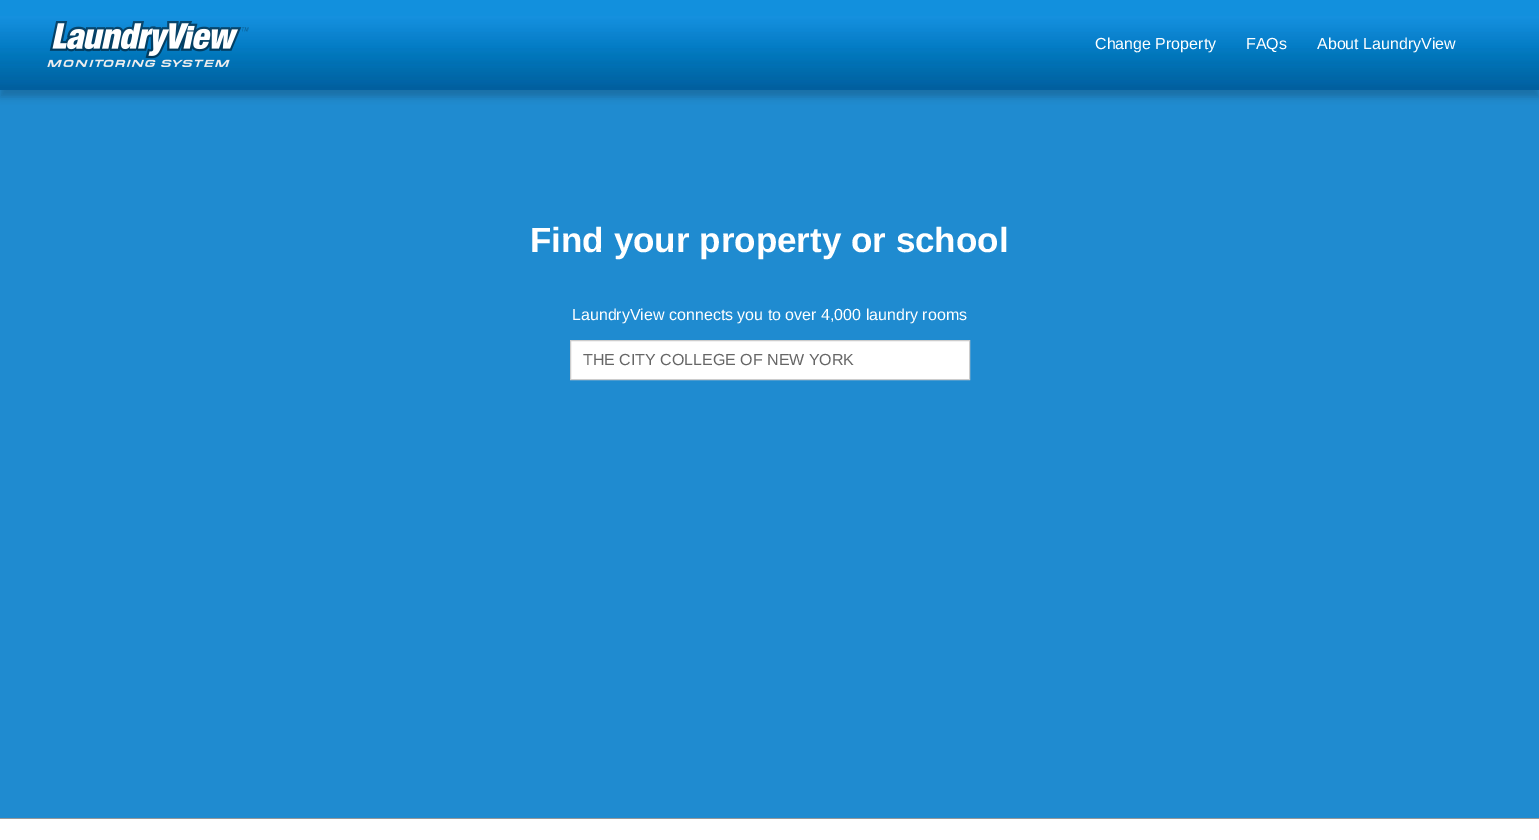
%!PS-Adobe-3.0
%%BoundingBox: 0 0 1539 840
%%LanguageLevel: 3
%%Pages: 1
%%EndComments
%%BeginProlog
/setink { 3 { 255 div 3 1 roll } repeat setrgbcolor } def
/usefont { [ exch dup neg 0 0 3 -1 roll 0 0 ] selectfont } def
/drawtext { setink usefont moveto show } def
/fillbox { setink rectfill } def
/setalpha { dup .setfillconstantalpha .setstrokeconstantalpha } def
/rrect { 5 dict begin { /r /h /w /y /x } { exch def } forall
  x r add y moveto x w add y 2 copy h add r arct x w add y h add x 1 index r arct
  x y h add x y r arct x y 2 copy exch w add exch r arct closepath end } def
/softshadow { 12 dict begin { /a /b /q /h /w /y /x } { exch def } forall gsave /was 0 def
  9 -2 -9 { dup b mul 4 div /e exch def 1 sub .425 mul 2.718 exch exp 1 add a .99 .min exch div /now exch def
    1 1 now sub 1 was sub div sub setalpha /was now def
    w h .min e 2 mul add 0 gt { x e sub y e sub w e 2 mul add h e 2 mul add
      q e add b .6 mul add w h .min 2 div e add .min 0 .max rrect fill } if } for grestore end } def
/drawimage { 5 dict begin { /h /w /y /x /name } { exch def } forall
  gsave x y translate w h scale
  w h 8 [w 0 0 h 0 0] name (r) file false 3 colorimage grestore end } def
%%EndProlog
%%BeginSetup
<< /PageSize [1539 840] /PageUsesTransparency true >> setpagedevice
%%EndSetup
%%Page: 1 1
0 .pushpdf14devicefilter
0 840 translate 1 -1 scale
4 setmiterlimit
0 0 1539 840 255 255 255 fillbox
0 90 1539 728 31 139 208 fillbox
0 0 0 setink
0 7 1539 90 0 3.5 0.2 softshadow
(assets/img1.rgb) 0 0 1539 90 drawimage
(assets/img2.rgb) 47 21 202 46 drawimage
(Change Property) 1095 49 /LiberationSans-Regular 16 255 255 255 drawtext
(FAQs) 1246 49 /LiberationSans-Regular 16 255 255 255 drawtext
(About LaundryView) 1317 49 /LiberationSans-Regular 16 255 255 255 drawtext
(Find your property or school) 530 252 /LiberationSans-Bold 35 255 255 255 drawtext
(LaundryView connects you to over 4,000 laundry rooms) 572 320 /LiberationSans-Regular 16 255 255 255 drawtext
570.5 340.5 moveto 969.5 340.5 lineto 969.5 379.5 lineto 570.5 379.5 lineto closepath gsave fill grestore
204 204 204 setink
stroke
(THE CITY COLLEGE OF NEW YORK) 583 365 /LiberationSans-Regular 16 102 102 102 drawtext
0 818 1539 1 149 152 154 fillbox
.poppdf14devicefilter showpage
%%EOF
